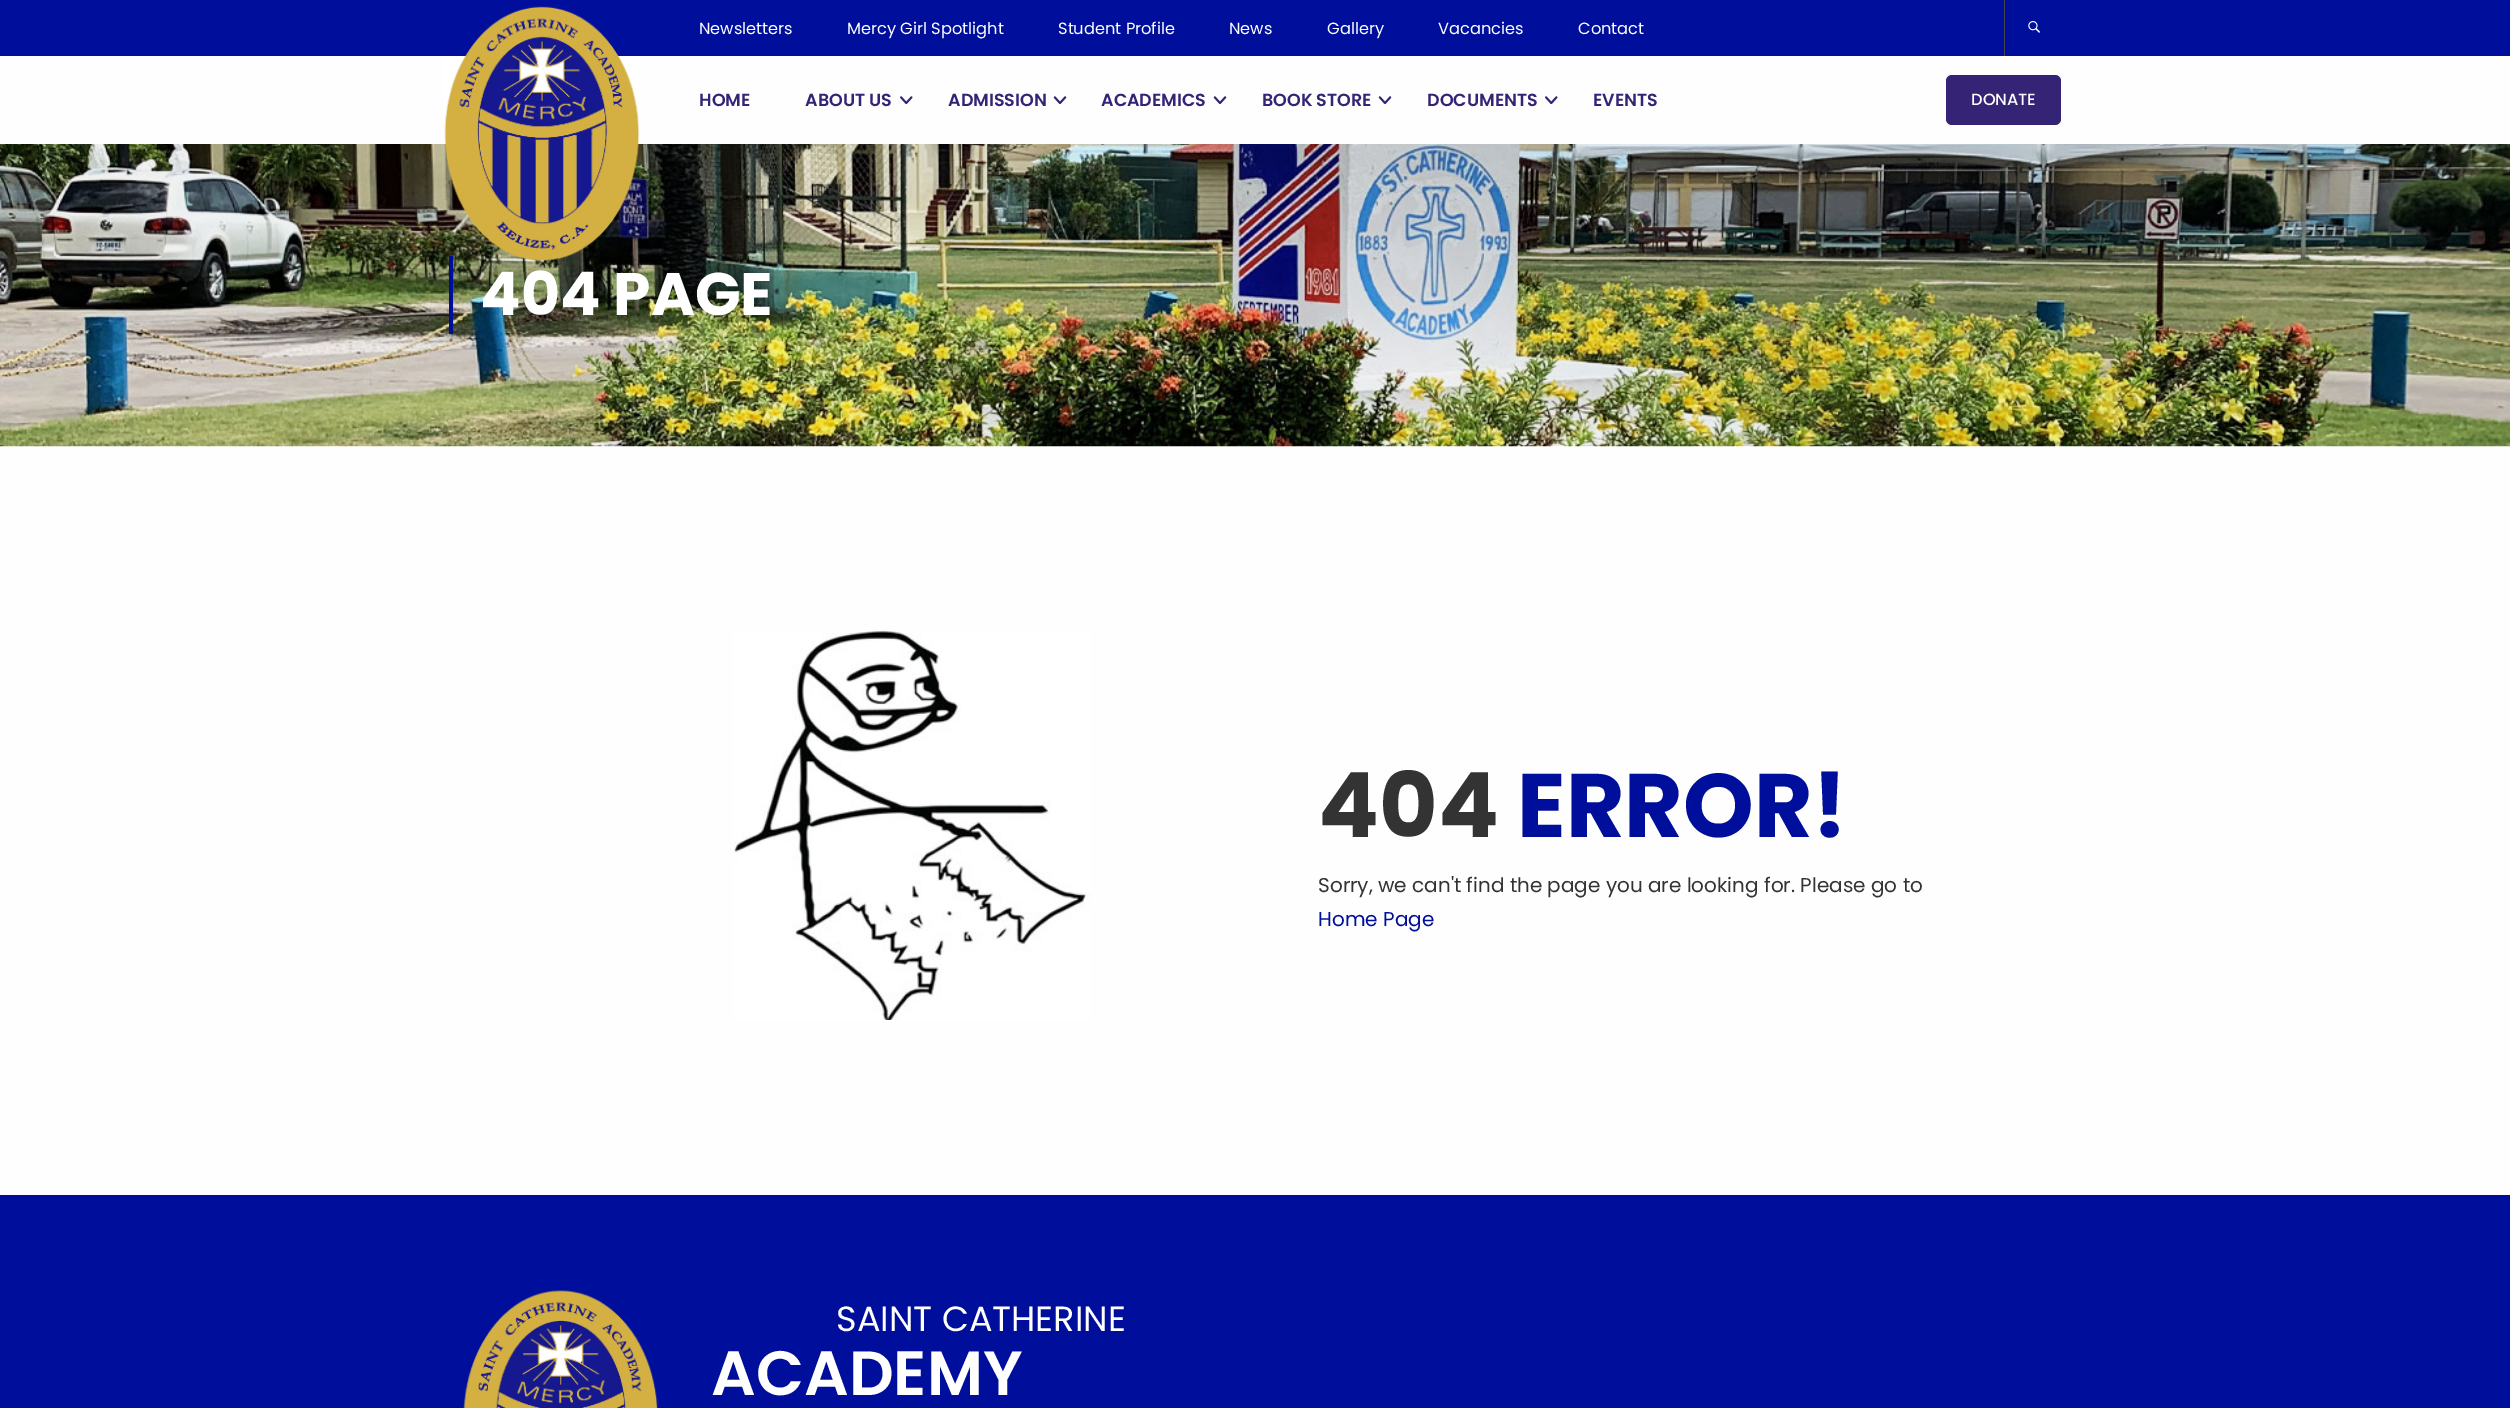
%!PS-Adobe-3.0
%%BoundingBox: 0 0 2510 1408
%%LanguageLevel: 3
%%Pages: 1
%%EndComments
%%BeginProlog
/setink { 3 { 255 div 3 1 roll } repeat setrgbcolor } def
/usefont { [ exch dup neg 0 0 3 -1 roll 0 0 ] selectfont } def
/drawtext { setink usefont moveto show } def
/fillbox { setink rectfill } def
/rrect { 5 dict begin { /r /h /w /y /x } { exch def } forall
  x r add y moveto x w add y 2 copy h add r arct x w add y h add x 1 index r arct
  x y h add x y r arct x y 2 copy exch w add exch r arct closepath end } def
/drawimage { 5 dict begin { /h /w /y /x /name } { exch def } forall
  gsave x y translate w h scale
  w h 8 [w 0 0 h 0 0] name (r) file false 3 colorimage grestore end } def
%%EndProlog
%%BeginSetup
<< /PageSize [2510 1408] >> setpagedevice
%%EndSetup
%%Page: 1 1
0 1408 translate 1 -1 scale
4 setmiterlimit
0 0 2510 1408 254 254 254 fillbox
0 0 2510 56 0 15 155 fillbox
(Newsletters) 699 34 /Poppins-Regular 16.25 255 255 255 drawtext
(Mercy Girl Spotlight) 847 34 /Poppins-Regular 16.25 255 255 255 drawtext
(Student Profile) 1058 34 /Poppins-Regular 16.25 255 255 255 drawtext
(News) 1229 34 /Poppins-Regular 16.25 255 255 255 drawtext
(Gallery) 1327 34 /Poppins-Regular 16.25 255 255 255 drawtext
(Vacancies) 1438 34 /Poppins-Regular 16.25 255 255 255 drawtext
(Contact) 1578 34 /Poppins-Regular 16.25 255 255 255 drawtext
2004 0 1 56 68 68 68 fillbox
(assets/img1.rgb) 2028 21 12 12 drawimage
(assets/img5.rgb) 0 144 2510 303 drawimage
449 256 4 78 0 15 155 fillbox
(assets/img2.rgb) 444 6 196 255 drawimage
(HOME) 699 106 /Poppins-SemiBold 17.5 53 36 117 drawtext
(ABOUT US) 805 106 /Poppins-SemiBold 17.5 53 36 117 drawtext
(assets/img3.rgb) 900 96 13 9 drawimage
(ADMISSION) 948 106 /Poppins-SemiBold 17.5 53 36 117 drawtext
(assets/img4.rgb) 1053 96 14 9 drawimage
(ACADEMICS) 1101 106 /Poppins-SemiBold 17.5 53 36 117 drawtext
(assets/img4.rgb) 1213 96 14 9 drawimage
(BOOK STORE) 1262 106 /Poppins-SemiBold 17.5 53 36 117 drawtext
(assets/img4.rgb) 1378 96 14 9 drawimage
(DOCUMENTS) 1427 106 /Poppins-SemiBold 17.5 53 36 117 drawtext
(assets/img3.rgb) 1545 96 13 9 drawimage
(EVENTS) 1593 106 /Poppins-SemiBold 17.5 53 36 117 drawtext
1946 75 115 50 6 rrect fill
(DONATE) 1971 105 /Poppins-Medium 16.25 255 255 255 drawtext
(404 PAGE) 480 315 /Poppins-Bold 60 255 255 255 drawtext
(assets/img6.rgb) 734 630 357 390 drawimage
(404) 1318 837 /Poppins-Bold 90 51 51 51 drawtext
(ERROR!) 1517 837 /Poppins-Bold 90 0 15 155 drawtext
(Sorry, we can't find the page you are looking for. Please go to) 1318 892 /Poppins-Regular 20 51 51 51 drawtext
(Home Page) 1318 926 /Poppins-Regular 20 0 15 155 drawtext
0 1195 2510 213 0 15 155 fillbox
(assets/img7.rgb) 463 1290 195 118 drawimage
(SAINT CATHERINE) 836 1331 /Poppins-Regular 35 255 255 255 drawtext
(ACADEMY) 711 1395 /Poppins-SemiBold 62.5 255 255 255 drawtext
showpage
%%EOF
